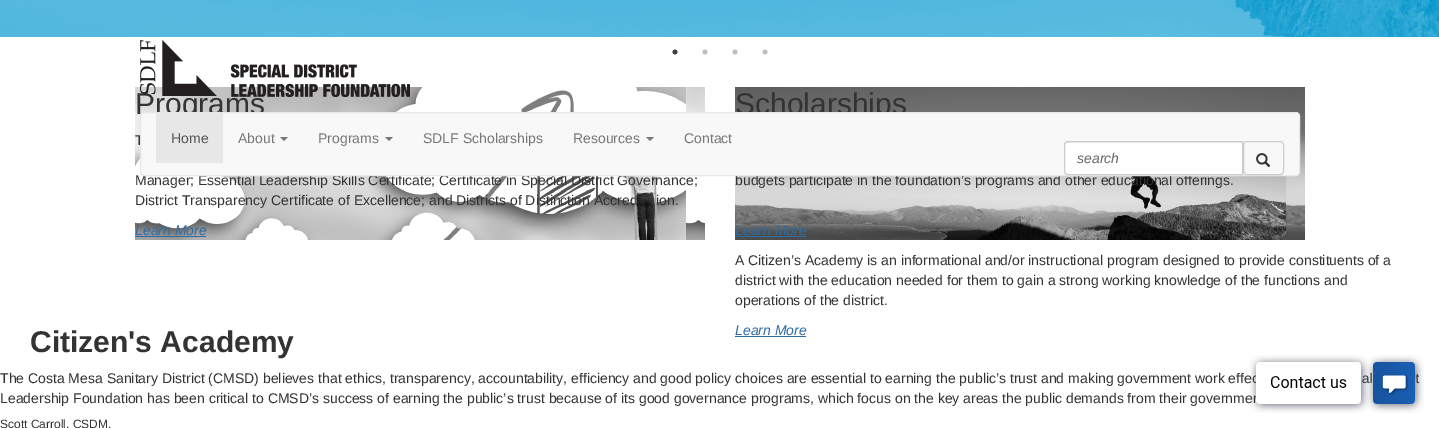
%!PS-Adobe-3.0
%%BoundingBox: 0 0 1439 428
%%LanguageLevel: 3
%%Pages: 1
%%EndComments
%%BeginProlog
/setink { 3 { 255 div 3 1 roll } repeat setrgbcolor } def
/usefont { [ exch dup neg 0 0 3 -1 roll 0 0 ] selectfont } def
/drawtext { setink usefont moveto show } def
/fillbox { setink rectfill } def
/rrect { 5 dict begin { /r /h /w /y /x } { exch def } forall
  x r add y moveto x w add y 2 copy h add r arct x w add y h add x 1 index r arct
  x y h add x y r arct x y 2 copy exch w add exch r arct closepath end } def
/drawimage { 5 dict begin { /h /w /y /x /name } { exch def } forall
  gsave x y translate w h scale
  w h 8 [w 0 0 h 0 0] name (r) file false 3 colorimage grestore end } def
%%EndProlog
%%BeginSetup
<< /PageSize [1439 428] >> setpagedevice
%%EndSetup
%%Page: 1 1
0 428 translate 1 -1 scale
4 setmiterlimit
0 0 1439 428 255 255 255 fillbox
(assets/img1.rgb) 0 0 1439 37 drawimage
(assets/img2.rgb) 672 49 6 6 drawimage
(assets/img3.rgb) 702 49 6 6 drawimage
(assets/img3.rgb) 732 49 6 6 drawimage
(assets/img3.rgb) 762 49 6 6 drawimage
(assets/img4.rgb) 135 87 570 153 drawimage
(Programs) 135 114 /LiberationSans-Regular 30 51 51 51 drawtext
(T) 135 145 /LiberationSans-Regular 14 51 51 51 drawtext
(Manager; Essential Leadership Skills Certificate; Certificate in Special District Governance;) 135 185 /LiberationSans-Regular 14 51 51 51 drawtext
(District Transparency Certificate of Excellence; and Districts of Distinction Accred) 135 205 /LiberationSans-Regular 14 51 51 51 drawtext
(ion.) 656 205 /LiberationSans-Regular 14 51 51 51 drawtext
(Learn More) 135 235 /LiberationSans-Italic 14 46 109 164 drawtext
135 236 71 1 46 109 164 fillbox
(assets/img5.rgb) 735 87 570 153 drawimage
(Scholarships) 735 114 /LiberationSans-Regular 30 51 51 51 drawtext
(budgets participate in the foundation’s programs and other educational offerings.) 735 185 /LiberationSans-Regular 14 51 51 51 drawtext
(Learn More) 735 235 /LiberationSans-Italic 14 46 109 164 drawtext
735 236 71 1 46 109 164 fillbox
(A Citizen’s Academy is an informational and/or instructional program designed to provide constituents of a) 735 265 /LiberationSans-Regular 14 51 51 51 drawtext
(district with the education needed for them to gain a strong working knowledge of the functions and) 735 285 /LiberationSans-Regular 14 51 51 51 drawtext
(operations of the district.) 735 305 /LiberationSans-Regular 14 51 51 51 drawtext
(Learn More) 735 335 /LiberationSans-Italic 14 46 109 164 drawtext
735 336 71 1 46 109 164 fillbox
(Citizen's Academy) 30 352 /LiberationSans-Bold 30 51 51 51 drawtext
(The Costa Mesa Sanitary District \(CMSD\) believes that ethics, transparency, accountability, efficiency and good policy choices are essential to earning the public’s trust and making government work effec) 0 383 /LiberationSans-Regular 14 51 51 51 drawtext
(al) 1362 383 /LiberationSans-Regular 14 51 51 51 drawtext
(t) 1415 383 /LiberationSans-Regular 14 51 51 51 drawtext
(Leadership Foundation has been critical to CMSD’s success of earning the public’s trust because of its good governance programs, which focus on the key areas the public demands from their governme) 0 403 /LiberationSans-Regular 14 51 51 51 drawtext
(Scott Carroll, CSDM,) 0 428 /LiberationSans-Regular 12 51 51 51 drawtext
(assets/img6.rgb) 140 40 270 57 drawimage
248 248 248 setink
140.5 112.5 1159 63 3.5 rrect gsave fill grestore
231 231 231 setink
stroke
156 113 67 50 231 231 231 fillbox
(Home) 171 143 /LiberationSans-Regular 14 85 85 85 drawtext
(About) 238 143 /LiberationSans-Regular 14 119 119 119 drawtext
280 137 moveto 288 137 lineto 284 141 lineto closepath fill
(Programs) 318 143 /LiberationSans-Regular 14 119 119 119 drawtext
385 137 moveto 393 137 lineto 389 141 lineto closepath fill
(SDLF Scholarships) 423 143 /LiberationSans-Regular 14 119 119 119 drawtext
(Resources) 573 143 /LiberationSans-Regular 14 119 119 119 drawtext
646 137 moveto 654 137 lineto 650 141 lineto closepath fill
(Contact) 684 143 /LiberationSans-Regular 14 119 119 119 drawtext
255 255 255 setink
1068 141 moveto 1243 141 lineto 1243 175 lineto 1068 175 lineto 1066 175 1064 173 1064 171 curveto 1064 145 lineto 1064 143 1066 141 1068 141 curveto closepath fill
236 236 236 setink
1068 143 moveto 1242 143 lineto 1242 142 lineto 1067 142 lineto 1065 143 1065 144 1065 146 curveto 1065 144 1066 143 1068 143 curveto closepath fill
204 204 204 setink
1068 141.5 moveto 1242.5 141.5 lineto 1242.5 174.5 lineto 1068 174.5 lineto 1066 174.5 1064.5 173 1064.5 171 curveto 1064.5 145 lineto 1064.5 143 1066 141.5 1068 141.5 curveto closepath stroke
(search) 1077 163 /LiberationSans-Italic 14 102 102 102 drawtext
204 204 204 setink
1243.5 141.5 40 33 3.5 rrect stroke
(assets/img7.rgb) 1256 153 15 14 drawimage
(assets/img8.rgb) 1249 355 175 58 drawimage
showpage
%%EOF
